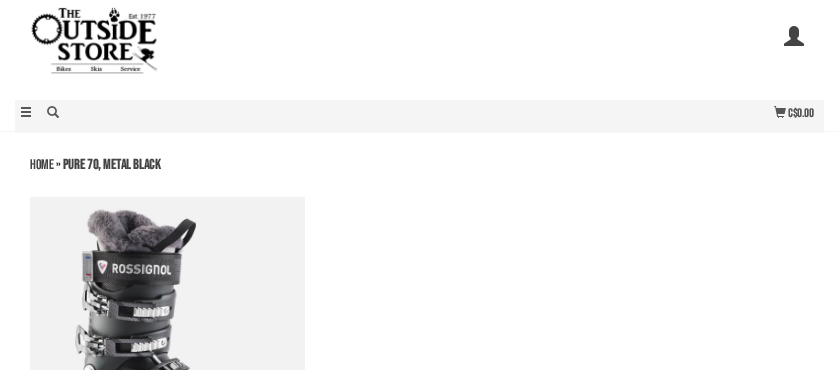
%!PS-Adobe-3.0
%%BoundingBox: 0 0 839 370
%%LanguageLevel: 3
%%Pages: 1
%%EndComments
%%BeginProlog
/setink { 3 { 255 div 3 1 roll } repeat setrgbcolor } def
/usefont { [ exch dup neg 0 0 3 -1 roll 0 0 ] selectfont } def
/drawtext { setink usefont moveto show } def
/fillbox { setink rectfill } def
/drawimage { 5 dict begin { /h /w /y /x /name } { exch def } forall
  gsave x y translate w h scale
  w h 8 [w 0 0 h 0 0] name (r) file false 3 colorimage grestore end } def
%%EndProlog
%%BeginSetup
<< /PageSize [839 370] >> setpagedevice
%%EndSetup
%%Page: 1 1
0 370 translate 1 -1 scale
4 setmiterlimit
0 0 839 370 255 255 255 fillbox
0 131 839 1 247 247 247 fillbox
(assets/img1.rgb) 31 7 127 67 drawimage
(assets/img2.rgb) 784 26 20 20 drawimage
15 100 809 33 245 245 245 fillbox
(assets/img3.rgb) 21 107 10 10 drawimage
(assets/img4.rgb) 47 106 12 12 drawimage
(assets/img5.rgb) 774 106 12 12 drawimage
(C$0.00) 788 117 /BebasNeue-Bold 12 89 86 86 drawtext
(Home) 30 169 /BebasNeue-Regular 14 68 68 68 drawtext
(») 56 169 /BebasNeue-Regular 14 51 51 51 drawtext
(Pure 70, Metal Black) 63 169 /BebasNeue-Bold 14 68 68 68 drawtext
(assets/img6.rgb) 30 197 275 173 drawimage
showpage
%%EOF
